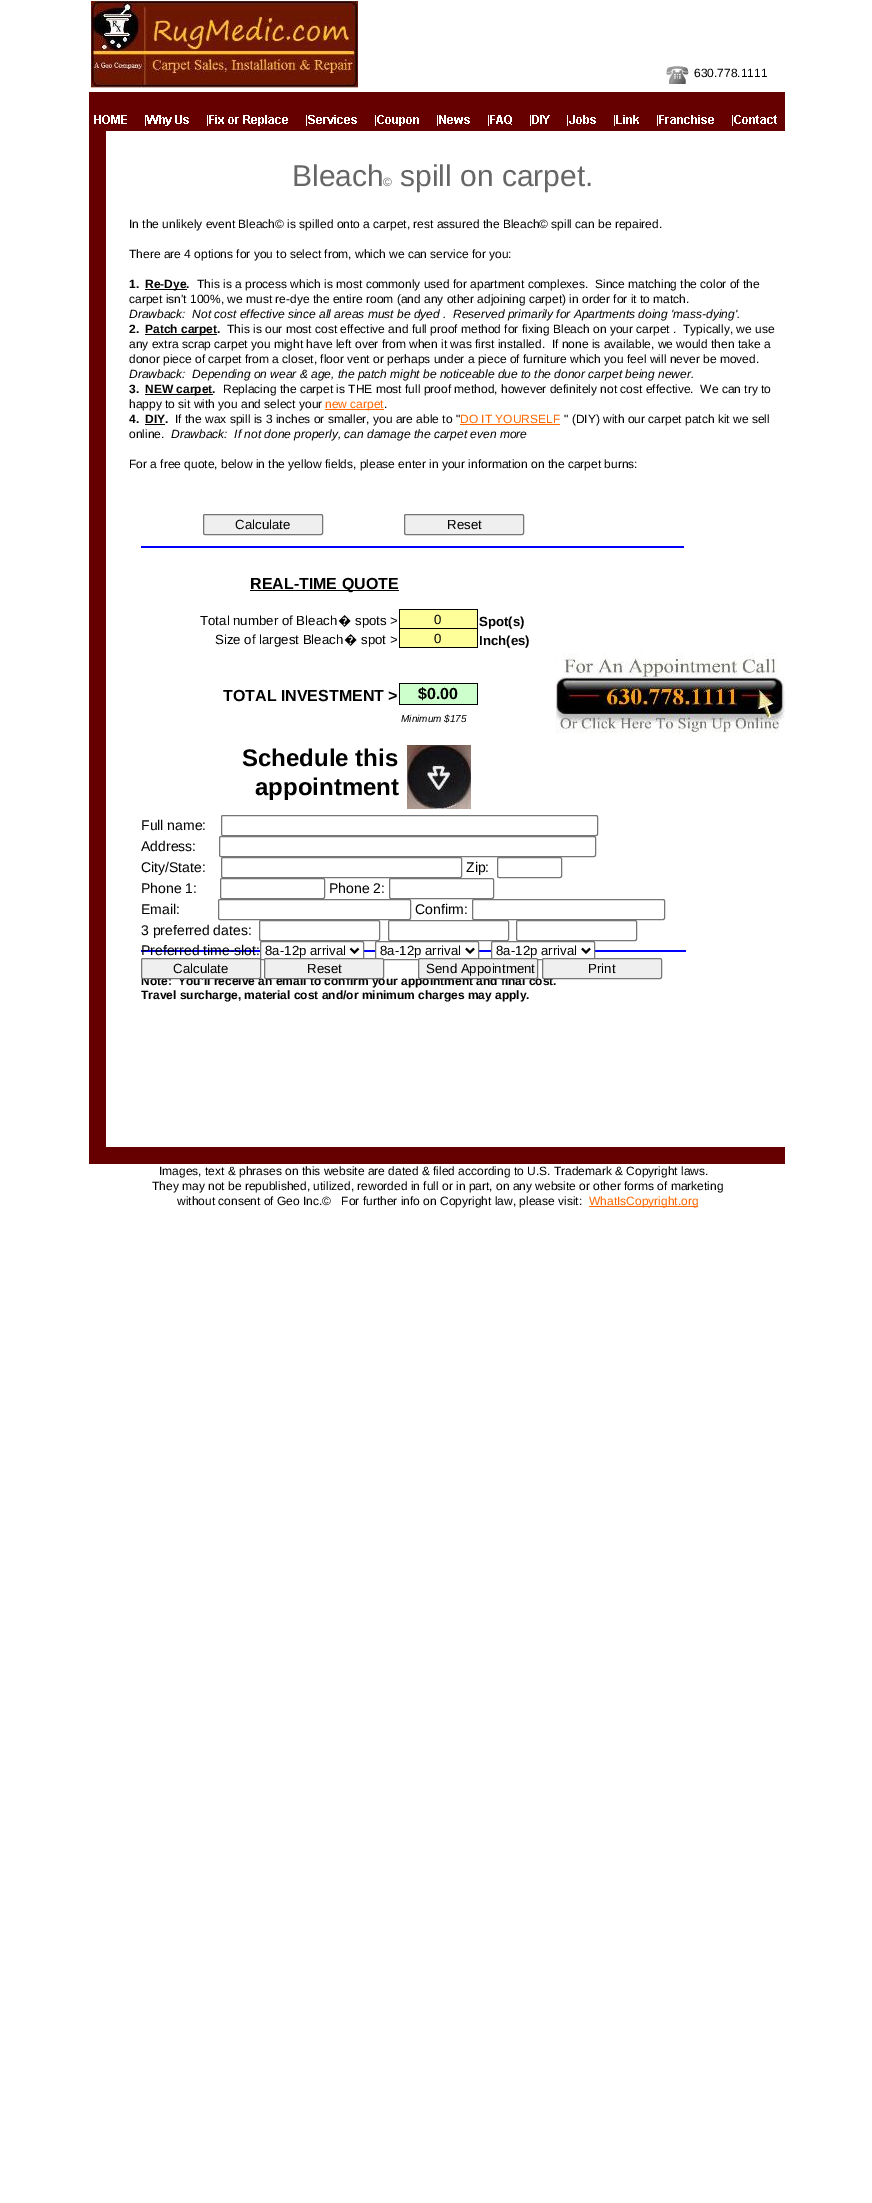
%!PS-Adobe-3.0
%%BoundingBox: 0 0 872 2203
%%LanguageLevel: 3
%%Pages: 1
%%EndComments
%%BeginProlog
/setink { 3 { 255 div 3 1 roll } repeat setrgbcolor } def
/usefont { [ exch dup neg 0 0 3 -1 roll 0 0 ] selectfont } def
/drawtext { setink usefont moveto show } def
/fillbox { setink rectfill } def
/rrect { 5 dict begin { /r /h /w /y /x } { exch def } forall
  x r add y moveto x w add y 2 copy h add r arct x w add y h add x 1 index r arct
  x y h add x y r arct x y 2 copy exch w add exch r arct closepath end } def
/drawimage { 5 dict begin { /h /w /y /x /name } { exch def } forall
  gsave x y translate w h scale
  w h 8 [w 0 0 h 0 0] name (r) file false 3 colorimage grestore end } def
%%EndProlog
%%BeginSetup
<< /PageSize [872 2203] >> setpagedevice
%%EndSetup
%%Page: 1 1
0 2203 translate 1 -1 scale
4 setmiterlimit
0 0 872 2203 255 255 255 fillbox
(assets/img1.rgb) 91 1 267 87 drawimage
(assets/img2.rgb) 666 65 23 22 drawimage
(630.778.1111) 694 77 /LiberationSans-Regular 12 0 0 0 drawtext
89 92 696 39 102 0 0 fillbox
(assets/img3.rgb) 94 115 33 9 drawimage
(assets/img4.rgb) 145 115 44 11 drawimage
(assets/img5.rgb) 207 115 81 11 drawimage
(assets/img6.rgb) 306 115 51 11 drawimage
(assets/img7.rgb) 375 115 44 11 drawimage
(assets/img8.rgb) 437 115 33 11 drawimage
(assets/img9.rgb) 488 115 24 11 drawimage
(assets/img10.rgb) 530 115 20 11 drawimage
(assets/img11.rgb) 567 115 29 11 drawimage
(assets/img12.rgb) 614 115 25 11 drawimage
(assets/img13.rgb) 657 115 57 11 drawimage
(assets/img14.rgb) 732 115 45 11 drawimage
89 131 17 1016 102 0 0 fillbox
(Bleach) 292 186 /LiberationSans-Regular 30 102 102 102 drawtext
(©) 383 186 /LiberationSans-Regular 12 102 102 102 drawtext
(spill on carpet.) 400 186 /LiberationSans-Regular 30 102 102 102 drawtext
(In the unlikely event Bleach© is spilled onto a carpet, rest assured the Bleach© spill can be repaired.) 129 228 /LiberationSans-Regular 12 0 0 0 drawtext
(There are 4 options for you to select from, which we can service for you:) 129 258 /LiberationSans-Regular 12 0 0 0 drawtext
(1.) 129 288 /LiberationSans-Bold 12 0 0 0 drawtext
145 289 42 1 0 0 0 fillbox
(Re-Dye.) 145 288 /LiberationSans-Bold 12 0 0 0 drawtext
(This is a process which is most commonly used for apartment complexes.  Since matching the color of the) 197 288 /LiberationSans-Regular 12 0 0 0 drawtext
(carpet isn't 100%, we must re-dye the entire room \(and any other adjoining carpet\) in order for it to match.) 129 303 /LiberationSans-Regular 12 0 0 0 drawtext
(Drawback:  Not cost effective since all areas must be dyed .  Reserved primarily for Apartments doing 'mass-dying'.) 129 318 /LiberationSans-Italic 12 0 0 0 drawtext
(2.) 129 333 /LiberationSans-Bold 12 0 0 0 drawtext
145 334 72 1 0 0 0 fillbox
(Patch carpet.) 145 333 /LiberationSans-Bold 12 0 0 0 drawtext
(This is our most cost effective and full proof method for fixing Bleach on your carpet .  Typically, we use) 227 333 /LiberationSans-Regular 12 0 0 0 drawtext
(any extra scrap carpet you might have left over from when it was first installed.  If none is available, we would then take a) 129 348 /LiberationSans-Regular 12 0 0 0 drawtext
(donor piece of carpet from a closet, floor vent or perhaps under a piece of furniture which you feel will never be moved.) 129 363 /LiberationSans-Regular 12 0 0 0 drawtext
(Drawback:  Depending on wear & age, the patch might be noticeable due to the donor carpet being newer.) 129 378 /LiberationSans-Italic 12 0 0 0 drawtext
(3.) 129 393 /LiberationSans-Bold 12 0 0 0 drawtext
145 394 68 1 0 0 0 fillbox
(NEW carpet.) 145 393 /LiberationSans-Bold 12 0 0 0 drawtext
(Replacing the carpet is THE most full proof method, however definitely not cost effective.  We can try to) 223 393 /LiberationSans-Regular 12 0 0 0 drawtext
(happy to sit with you and select your) 129 408 /LiberationSans-Regular 12 0 0 0 drawtext
325 409 59 1 255 102 0 fillbox
(new carpet) 325 408 /LiberationSans-Regular 12 255 102 0 drawtext
(.) 384 408 /LiberationSans-Regular 12 0 0 0 drawtext
(4.) 129 423 /LiberationSans-Bold 12 0 0 0 drawtext
(DIY.) 145 423 /LiberationSans-Bold 12 0 0 0 drawtext
145 424 20 1 0 0 0 fillbox
(If the wax spill is 3 inches or smaller, you are able to ") 175 423 /LiberationSans-Regular 12 0 0 0 drawtext
460 424 100 1 255 102 0 fillbox
(DO IT YOURSELF) 460 423 /LiberationSans-Regular 12 255 102 0 drawtext
(" \(DIY\) with our carpet patch kit we sell) 564 423 /LiberationSans-Regular 12 0 0 0 drawtext
(online.) 129 438 /LiberationSans-Regular 12 0 0 0 drawtext
(Drawback:  If not done properly, can damage the carpet even more) 171 438 /LiberationSans-Italic 12 0 0 0 drawtext
(For a free quote, below in the yellow fields, please enter in your information on the carpet burns:) 129 468 /LiberationSans-Regular 12 0 0 0 drawtext
141 546 543 2 0 0 255 fillbox
239 239 239 setink
203.5 514.5 119 20 1.5 rrect gsave fill grestore
118 118 118 setink
stroke
(Calculate) 235 529 /LiberationSans-Regular 13.25 0 0 0 drawtext
239 239 239 setink
404.5 514.5 119 20 1.5 rrect gsave fill grestore
118 118 118 setink
stroke
(Reset) 447 529 /LiberationSans-Regular 13.25 0 0 0 drawtext
250 590 149 1 0 0 0 fillbox
(REAL-TIME QUOTE) 250 589 /LiberationSans-Bold 16 0 0 0 drawtext
(Total number of Bleach) 200 625 /LiberationSans-Regular 13.25 0 0 0 drawtext
(�) 338 625 /NotoSans-Regular 13.25 0 0 0 drawtext
(spots >) 355 625 /LiberationSans-Regular 13.25 0 0 0 drawtext
400 610 77 18 255 255 153 fillbox
399 609 79 1 0 0 0 fillbox
399 628 79 1 0 0 0 fillbox
477 628 1 20 0 0 0 fillbox
477 609 1 20 0 0 0 fillbox
399 647 79 1 0 0 0 fillbox
399 628 1 20 0 0 0 fillbox
399 609 1 20 0 0 0 fillbox
(0) 434 624 /LiberationSans-Regular 13.25 0 0 0 drawtext
(Spot\(s\)) 479 626 /LiberationSans-Bold 13.25 0 0 0 drawtext
(Size of largest Bleach) 215 644 /LiberationSans-Regular 13.25 0 0 0 drawtext
(�) 344 644 /NotoSans-Regular 13.25 0 0 0 drawtext
(spot >) 361 644 /LiberationSans-Regular 13.25 0 0 0 drawtext
400 629 77 18 255 255 153 fillbox
(0) 434 643 /LiberationSans-Regular 13.25 0 0 0 drawtext
(Inch\(es\)) 479 645 /LiberationSans-Bold 13.25 0 0 0 drawtext
(TOTAL INVESTMENT >) 223 701 /LiberationSans-Bold 16 0 0 0 drawtext
400 684 77 20 204 255 204 fillbox
399 683 79 1 0 0 0 fillbox
477 683 1 22 0 0 0 fillbox
399 704 79 1 0 0 0 fillbox
399 683 1 22 0 0 0 fillbox
($0.00) 418 699 /LiberationSans-Bold 16 0 0 0 drawtext
(Minimum $175) 401 722 /LiberationSans-Italic 10 0 0 0 drawtext
(Schedule this) 242 766 /LiberationSans-Bold 24 0 0 0 drawtext
(appointment) 255 795 /LiberationSans-Bold 24 0 0 0 drawtext
(Full name:) 141 830 /LiberationSans-Regular 14 0 0 0 drawtext
118 118 118 setink
221.5 815.5 376 20 1.5 rrect stroke
(Address:) 141 851 /LiberationSans-Regular 14 0 0 0 drawtext
118 118 118 setink
219.5 836.5 376 20 1.5 rrect stroke
(City/State:) 141 872 /LiberationSans-Regular 14 0 0 0 drawtext
118 118 118 setink
221.5 857.5 240 20 1.5 rrect stroke
(Zip:) 466 872 /LiberationSans-Regular 14 0 0 0 drawtext
118 118 118 setink
497.5 857.5 64 20 1.5 rrect stroke
(Phone 1:) 141 893 /LiberationSans-Regular 14 0 0 0 drawtext
118 118 118 setink
220.5 878.5 104 20 1.5 rrect stroke
(Phone 2:) 329 893 /LiberationSans-Regular 14 0 0 0 drawtext
118 118 118 setink
389.5 878.5 104 20 1.5 rrect stroke
(Email:) 141 914 /LiberationSans-Regular 14 0 0 0 drawtext
118 118 118 setink
218.5 899.5 192 20 1.5 rrect stroke
(Confirm:) 415 914 /LiberationSans-Regular 14 0 0 0 drawtext
118 118 118 setink
472.5 899.5 192 20 1.5 rrect stroke
(3 preferred dates:) 141 935 /LiberationSans-Regular 14 0 0 0 drawtext
118 118 118 setink
259.5 920.5 120 20 1.5 rrect stroke
388.5 920.5 120 20 1.5 rrect stroke
516.5 920.5 120 20 1.5 rrect stroke
141 950 545 2 0 0 255 fillbox
(Preferred time-slot:) 141 955 /LiberationSans-Regular 14 0 0 0 drawtext
255 255 255 setink
260.5 941.5 103 18 1.5 rrect gsave fill grestore
118 118 118 setink
stroke
0 0 0 setink
2 setlinewidth
350.5 948.5 moveto 354.5 952.5 lineto 358.5 948.5 lineto stroke
(8a-12p arrival) 265 955 /LiberationSans-Regular 13.25 0 0 0 drawtext
255 255 255 setink
375.5 941.5 103 18 1.5 rrect gsave fill grestore
118 118 118 setink
1 setlinewidth
stroke
0 0 0 setink
2 setlinewidth
466 948.5 moveto 470 952.5 lineto 474 948.5 lineto stroke
(8a-12p arrival) 380 955 /LiberationSans-Regular 13.25 0 0 0 drawtext
255 255 255 setink
491.5 941.5 103 18 1.5 rrect gsave fill grestore
118 118 118 setink
1 setlinewidth
stroke
0 0 0 setink
2 setlinewidth
582 948.5 moveto 586 952.5 lineto 590 948.5 lineto stroke
(8a-12p arrival) 496 955 /LiberationSans-Regular 13.25 0 0 0 drawtext
(Note:) 141 985 /LiberationSans-Bold 12 0 0 0 drawtext
(You'll receive an email to confirm your appointment and final cost.) 178 985 /LiberationSans-Bold 12 0 0 0 drawtext
(Travel surcharge, material cost and/or minimum charges may apply.) 141 999 /LiberationSans-Bold 12 0 0 0 drawtext
239 239 239 setink
141.5 958.5 119 20 1.5 rrect gsave fill grestore
118 118 118 setink
1 setlinewidth
stroke
(Calculate) 173 973 /LiberationSans-Regular 13.25 0 0 0 drawtext
239 239 239 setink
264.5 958.5 119 20 1.5 rrect gsave fill grestore
118 118 118 setink
stroke
(Reset) 307 973 /LiberationSans-Regular 13.25 0 0 0 drawtext
239 239 239 setink
418.5 958.5 119 20 1.5 rrect gsave fill grestore
118 118 118 setink
stroke
(Send Appointment) 426 973 /LiberationSans-Regular 13.25 0 0 0 drawtext
239 239 239 setink
542.5 958.5 119 20 1.5 rrect gsave fill grestore
118 118 118 setink
stroke
(Print) 588 973 /LiberationSans-Regular 13.25 0 0 0 drawtext
(assets/img15.rgb) 555 653 230 80 drawimage
(assets/img16.rgb) 407 745 64 64 drawimage
89 1147 696 17 102 0 0 fillbox
(Images, text & phrases on this website are dated & filed according to U.S. Trademark & Copyright laws.) 159 1175 /LiberationSans-Regular 12 0 0 0 drawtext
(They may not be republished, utilized, reworded in full or in part, on any website or other forms of marketing) 152 1190 /LiberationSans-Regular 12 0 0 0 drawtext
(without consent of Geo Inc.©   For further info on Copyright law, please visit:) 177 1205 /LiberationSans-Regular 12 0 0 0 drawtext
589 1206 109 1 255 102 0 fillbox
(WhatIsCopyright.org) 589 1205 /LiberationSans-Regular 12 255 102 0 drawtext
showpage
%%EOF
